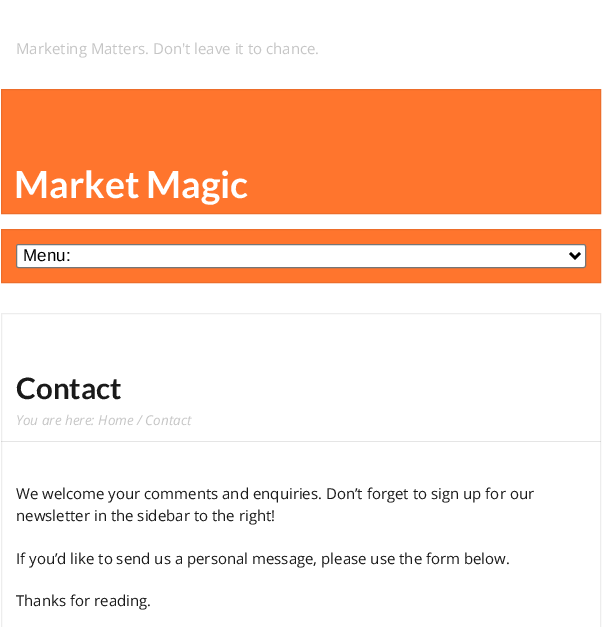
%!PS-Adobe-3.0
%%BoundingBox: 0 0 602 627
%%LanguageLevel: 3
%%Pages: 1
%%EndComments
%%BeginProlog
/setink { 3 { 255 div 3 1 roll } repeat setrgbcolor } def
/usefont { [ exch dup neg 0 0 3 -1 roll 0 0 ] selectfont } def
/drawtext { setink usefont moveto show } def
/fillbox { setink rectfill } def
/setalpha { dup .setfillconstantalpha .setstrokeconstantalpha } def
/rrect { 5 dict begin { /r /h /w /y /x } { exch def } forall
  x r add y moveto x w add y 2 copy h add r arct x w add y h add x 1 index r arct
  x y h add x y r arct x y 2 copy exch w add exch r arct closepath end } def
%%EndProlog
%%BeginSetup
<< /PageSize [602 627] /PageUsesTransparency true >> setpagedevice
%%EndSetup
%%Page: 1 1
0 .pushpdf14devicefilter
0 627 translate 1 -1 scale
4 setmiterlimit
0 0 602 627 255 255 255 fillbox
(Marketing Matters. Don't leave it to chance.) 16 54 /OpenSans-Regular 15 197 197 197 drawtext
255 117 45 setink
1.5 89.5 moveto 600.5 89.5 lineto 600.5 213.5 lineto 1.5 213.5 lineto closepath gsave fill grestore
237 109 42 setink
stroke
(Market Magic) 14 198 /Lato-Bold 37.5 255 255 255 drawtext
255 117 45 setink
1.5 229.5 moveto 600.5 229.5 lineto 600.5 282.5 lineto 1.5 282.5 lineto closepath gsave fill grestore
237 109 42 setink
stroke
255 255 255 setink
16.5 244.5 569 23 2 rrect gsave fill grestore
118 118 118 setink
stroke
0 0 0 setink
2.5 setlinewidth
570 253 moveto 575 258 lineto 580 253 lineto stroke
(Menu:) 23 261 /LiberationSans-Regular 17 0 0 0 drawtext
237 237 237 setink
1 setlinewidth
1.5 313.5 599 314 rectstroke
(Contact) 16 399 /Lato-Bold 29.5 26 26 26 drawtext
(You are here: Home / Contact) 16 425 /OpenSans-Italic 13.5 197 197 197 drawtext
0.1 setalpha
1 441 600 1 0 0 0 fillbox
1 setalpha
(We welcome your comments and enquiries. Don’t forget to sign up for our) 16 499 /OpenSans-Regular 15 26 26 26 drawtext
(newsletter in the sidebar to the right!) 16 521 /OpenSans-Regular 15 26 26 26 drawtext
(If you’d like to send us a personal message, please use the form below.) 16 564 /OpenSans-Regular 15 26 26 26 drawtext
(Thanks for reading.) 16 606 /OpenSans-Regular 15 26 26 26 drawtext
.poppdf14devicefilter showpage
%%EOF
